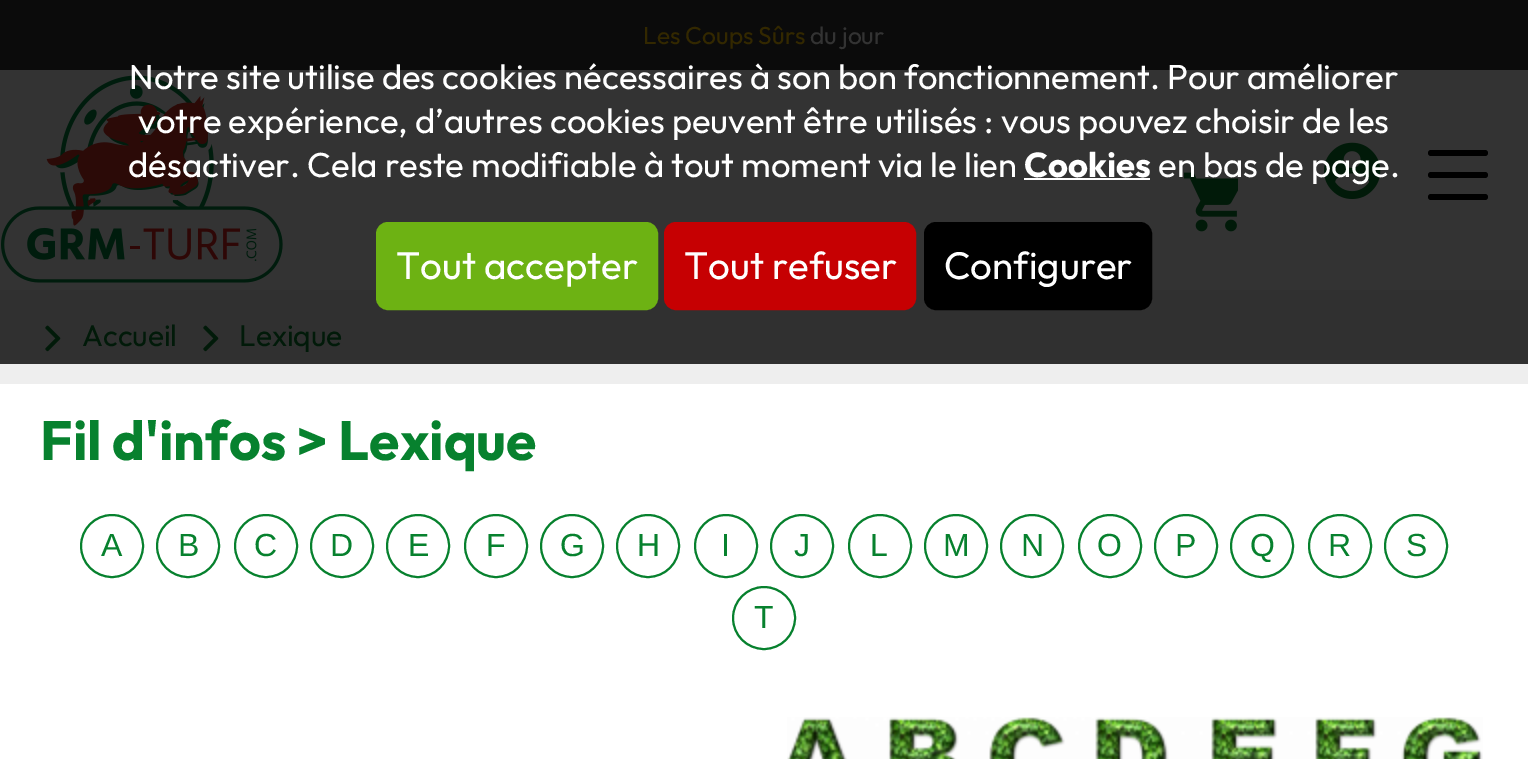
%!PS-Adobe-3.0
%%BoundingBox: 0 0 1528 759
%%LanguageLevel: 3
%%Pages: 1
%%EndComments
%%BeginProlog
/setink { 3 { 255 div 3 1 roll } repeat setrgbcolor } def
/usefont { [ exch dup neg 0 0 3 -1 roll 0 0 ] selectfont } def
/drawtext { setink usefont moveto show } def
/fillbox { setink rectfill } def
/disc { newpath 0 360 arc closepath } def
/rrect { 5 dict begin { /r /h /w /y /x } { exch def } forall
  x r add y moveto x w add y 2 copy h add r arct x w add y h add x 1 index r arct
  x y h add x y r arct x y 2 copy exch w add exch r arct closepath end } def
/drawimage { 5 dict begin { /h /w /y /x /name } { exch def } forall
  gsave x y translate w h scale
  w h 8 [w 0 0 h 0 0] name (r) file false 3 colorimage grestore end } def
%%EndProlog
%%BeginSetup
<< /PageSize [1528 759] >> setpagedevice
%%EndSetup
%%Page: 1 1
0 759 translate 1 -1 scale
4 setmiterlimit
0 0 1528 759 51 51 51 fillbox
0 0 1528 70 11 11 11 fillbox
(Les Coups Sûrs) 643 44 /Outfit-Regular 24.5 51 40 0 drawtext
(du jour) 810 44 /Outfit-Regular 24.5 51 51 51 drawtext
(assets/img1.rgb) 1 75 282 208 drawimage
(assets/img2.rgb) 1184 172 54 60 drawimage
(assets/img3.rgb) 1324 142 57 57 drawimage
0 0 0 setink
1428 150 60 6 3 rrect fill
1428 172 60 6 3 rrect fill
1428 194 60 6 3 rrect fill
0 364 1528 20 238 238 238 fillbox
0 290 1528 74 48 48 48 fillbox
(assets/img4.rgb) 45 325 16 27 drawimage
(Accueil) 82 346 /Outfit-Regular 30 1 26 9 drawtext
(assets/img4.rgb) 203 325 16 27 drawimage
(Lexique) 239 346 /Outfit-Regular 30 1 26 9 drawtext
0 384 1528 375 255 255 255 fillbox
(Fil d'infos > Lexique) 40 460 /Outfit-Bold 55.25 7 129 46 drawtext
2 setlinewidth
112 546 31 disc stroke
(A) 101 556 /LiberationSans-Regular 32 7 129 46 drawtext
188 546 31 disc stroke
(B) 178 556 /LiberationSans-Regular 32 7 129 46 drawtext
266 546 31 disc stroke
(C) 254 556 /LiberationSans-Regular 32 7 129 46 drawtext
342 546 31 disc stroke
(D) 330 556 /LiberationSans-Regular 32 7 129 46 drawtext
418 546 31 disc stroke
(E) 408 556 /LiberationSans-Regular 32 7 129 46 drawtext
496 546 31 disc stroke
(F) 486 556 /LiberationSans-Regular 32 7 129 46 drawtext
572 546 31 disc stroke
(G) 560 556 /LiberationSans-Regular 32 7 129 46 drawtext
648 546 31 disc stroke
(H) 637 556 /LiberationSans-Regular 32 7 129 46 drawtext
726 546 31 disc stroke
(I) 721 556 /LiberationSans-Regular 32 7 129 46 drawtext
802 546 31 disc stroke
(J) 794 556 /LiberationSans-Regular 32 7 129 46 drawtext
880 546 31 disc stroke
(L) 870 556 /LiberationSans-Regular 32 7 129 46 drawtext
956 546 31 disc stroke
(M) 943 556 /LiberationSans-Regular 32 7 129 46 drawtext
1032 546 31 disc stroke
(N) 1021 556 /LiberationSans-Regular 32 7 129 46 drawtext
1110 546 31 disc stroke
(O) 1097 556 /LiberationSans-Regular 32 7 129 46 drawtext
1186 546 31 disc stroke
(P) 1175 556 /LiberationSans-Regular 32 7 129 46 drawtext
1262 546 31 disc stroke
(Q) 1250 556 /LiberationSans-Regular 32 7 129 46 drawtext
1340 546 31 disc stroke
(R) 1328 556 /LiberationSans-Regular 32 7 129 46 drawtext
1416 546 31 disc stroke
(S) 1406 556 /LiberationSans-Regular 32 7 129 46 drawtext
764 618 31 disc stroke
(T) 754 628 /LiberationSans-Regular 32 7 129 46 drawtext
(assets/img5.rgb) 787 717 696 42 drawimage
(Notre site utilise des cookies nécessaires à son bon fonctionnement. Pour améliorer) 129 89 /Outfit-Regular 34.65 255 255 255 drawtext
(votre expérience, d’autres cookies peuvent être utilisés : vous pouvez choisir de les) 138 133 /Outfit-Regular 34.65 255 255 255 drawtext
(désactiver. Cela reste modifiable à tout moment via le lien) 128 177 /Outfit-Regular 34.65 255 255 255 drawtext
(Cookies) 1024 177 /Outfit-Bold 34.65 255 255 255 drawtext
1024 178 126 2 255 255 255 fillbox
(en bas de page.) 1158 177 /Outfit-Regular 34.65 255 255 255 drawtext
109 178 19 setink
378 224 278 84 10 rrect gsave fill grestore
4 setlinewidth
stroke
(Tout accepter) 396 279 /Outfit-Regular 38.5 255 255 255 drawtext
198 0 2 setink
666 224 248 84 10 rrect gsave fill grestore
stroke
(Tout refuser) 684 279 /Outfit-Regular 38.5 255 255 255 drawtext
0 0 0 setink
926 224 224 84 10 rrect gsave fill grestore
stroke
(Configurer) 944 279 /Outfit-Regular 38.5 255 255 255 drawtext
showpage
%%EOF
